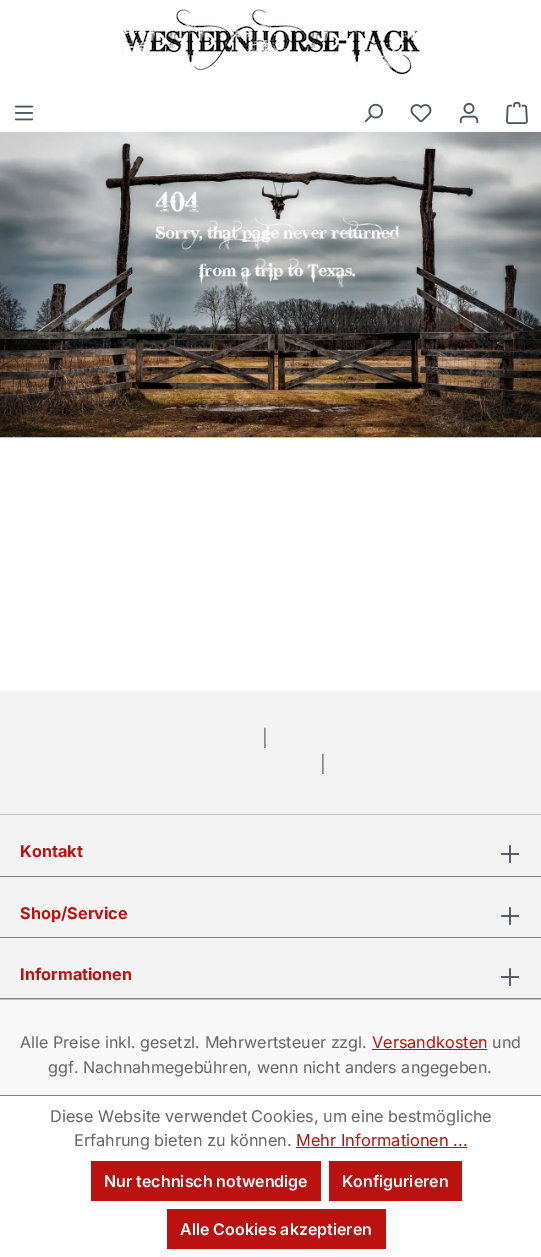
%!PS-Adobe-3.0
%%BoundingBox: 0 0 541 1257
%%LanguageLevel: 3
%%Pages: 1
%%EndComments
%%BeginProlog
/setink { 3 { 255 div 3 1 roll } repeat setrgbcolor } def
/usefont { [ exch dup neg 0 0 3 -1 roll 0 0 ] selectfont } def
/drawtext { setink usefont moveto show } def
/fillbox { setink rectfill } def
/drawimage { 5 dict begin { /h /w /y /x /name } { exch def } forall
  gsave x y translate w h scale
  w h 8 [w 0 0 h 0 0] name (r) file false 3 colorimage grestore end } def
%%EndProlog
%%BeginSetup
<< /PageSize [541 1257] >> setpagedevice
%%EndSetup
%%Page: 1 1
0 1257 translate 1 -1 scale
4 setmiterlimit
0 0 541 1257 255 255 255 fillbox
(assets/img1.rgb) 122 9 298 66 drawimage
(assets/img2.rgb) 14 105 20 16 drawimage
(assets/img3.rgb) 364 103 20 20 drawimage
(assets/img4.rgb) 410 104 22 19 drawimage
(assets/img5.rgb) 459 102 20 22 drawimage
(assets/img6.rgb) 506 102 22 22 drawimage
0 437 541 1 187 193 198 fillbox
(assets/img7.rgb) 0 132 541 305 drawimage
0 691 541 307 243 243 243 fillbox
0 814 541 1 187 193 198 fillbox
(|) 262 744 /Inter-Regular 17 101 101 101 drawtext
(|) 320 770 /Inter-Regular 17 101 101 101 drawtext
0 999 541 1 192 192 192 fillbox
0 876 541 1 121 132 144 fillbox
(Kontakt) 20 857 /Inter-Bold 16.25 187 17 17 drawtext
(assets/img8.rgb) 500 844 20 20 drawimage
0 937 541 1 121 132 144 fillbox
(Shop/Service) 20 919 /Inter-Bold 16.25 187 17 17 drawtext
(assets/img8.rgb) 500 906 20 20 drawimage
0 998 541 1 121 132 144 fillbox
(Informationen) 20 980 /Inter-Bold 16.25 187 17 17 drawtext
(assets/img8.rgb) 500 967 20 20 drawimage
0 1000 541 95 249 249 249 fillbox
(Alle Preise inkl. gesetzl. Mehrwertsteuer zzgl.) 20 1048 /Inter-Regular 16.1 101 101 101 drawtext
(Versandkosten) 372 1048 /Inter-Regular 16.25 187 17 17 drawtext
372 1049 115 1 187 17 17 fillbox
(und) 492 1048 /Inter-Regular 16.1 101 101 101 drawtext
(ggf. Nachnahmegebühren, wenn nicht anders angegeben.) 48 1073 /Inter-Regular 16.1 101 101 101 drawtext
0 1095 541 1 121 132 144 fillbox
(Diese Website verwendet Cookies, um eine bestmögliche) 50 1122 /Inter-Regular 16.25 101 101 101 drawtext
(Erfahrung bieten zu können.) 74 1146 /Inter-Regular 16.25 101 101 101 drawtext
(Mehr Informationen ...) 296 1146 /Inter-Regular 16.4 187 17 17 drawtext
296 1147 171 1 187 17 17 fillbox
91 1161 230 40 187 17 17 fillbox
(Nur technisch notwendige) 104 1187 /Inter-SemiBold 16 255 255 255 drawtext
329 1161 133 40 187 17 17 fillbox
(Konfigurieren) 342 1187 /Inter-SemiBold 16 255 255 255 drawtext
167 1209 219 40 187 17 17 fillbox
(Alle Cookies akzeptieren) 180 1235 /Inter-SemiBold 16 255 255 255 drawtext
showpage
%%EOF
